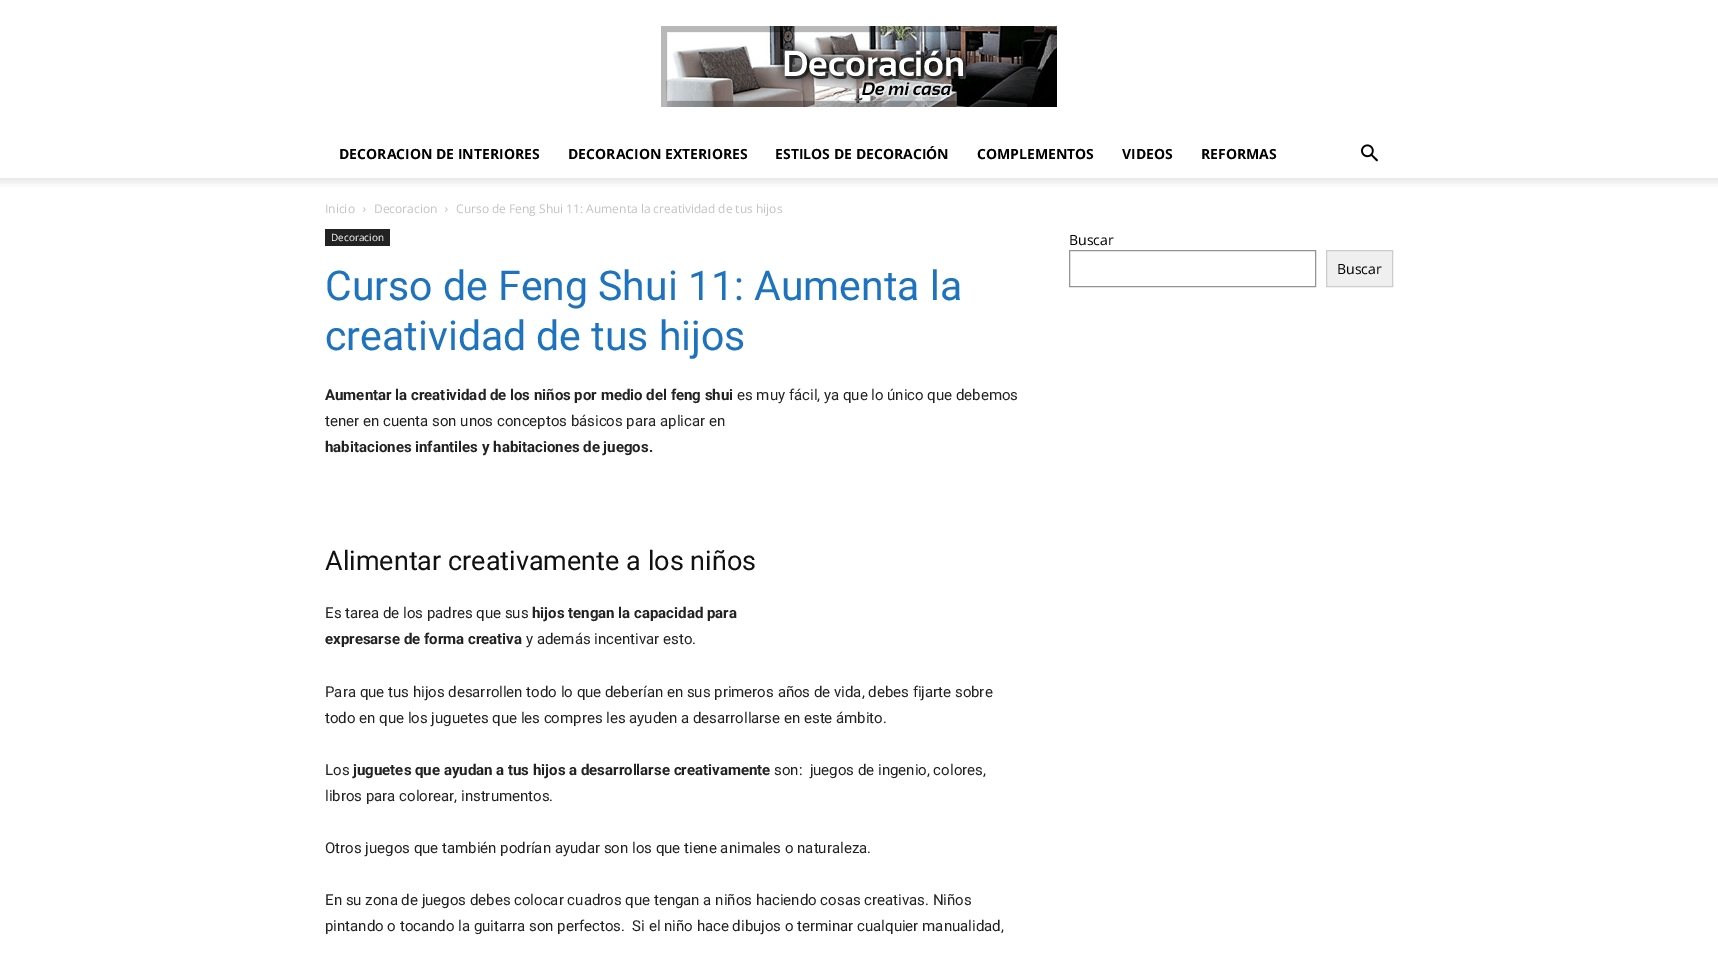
%!PS-Adobe-3.0
%%BoundingBox: 0 0 1718 953
%%LanguageLevel: 3
%%Pages: 1
%%EndComments
%%BeginProlog
/setink { 3 { 255 div 3 1 roll } repeat setrgbcolor } def
/usefont { [ exch dup neg 0 0 3 -1 roll 0 0 ] selectfont } def
/drawtext { setink usefont moveto show } def
/fillbox { setink rectfill } def
/drawimage { 5 dict begin { /h /w /y /x /name } { exch def } forall
  gsave x y translate w h scale
  w h 8 [w 0 0 h 0 0] name (r) file false 3 colorimage grestore end } def
%%EndProlog
%%BeginSetup
<< /PageSize [1718 953] >> setpagedevice
%%EndSetup
%%Page: 1 1
0 953 translate 1 -1 scale
4 setmiterlimit
0 0 1718 953 255 255 255 fillbox
(assets/img1.rgb) 661 26 396 81 drawimage
(DECORACION DE INTERIORES) 339 159 /OpenSans-Bold 14 0 0 0 drawtext
(DECORACION EXTERIORES) 568 159 /OpenSans-Bold 14 0 0 0 drawtext
(ESTILOS DE DECORACIÓN) 775 159 /OpenSans-Bold 14 0 0 0 drawtext
(COMPLEMENTOS) 977 159 /OpenSans-Bold 14 0 0 0 drawtext
(VIDEOS) 1122 159 /OpenSans-Bold 14 0 0 0 drawtext
(REFORMAS) 1201 159 /OpenSans-Bold 14 0 0 0 drawtext
(assets/img2.rgb) 1361 144 17 18 drawimage
(assets/img3.rgb) 0 178 1718 9 drawimage
(Inicio) 325 213 /OpenSans-Regular 12 195 195 195 drawtext
(assets/img4.rgb) 363 207 3 5 drawimage
(Decoracion) 374 213 /OpenSans-Regular 12 195 195 195 drawtext
(assets/img4.rgb) 445 207 3 5 drawimage
(Curso de Feng Shui 11: Aumenta la creatividad de tus hijos) 456 213 /OpenSans-Regular 12 195 195 195 drawtext
325 229 65 17 34 34 34 fillbox
(Decoracion) 331 241 /OpenSans-Regular 10 255 255 255 drawtext
(Curso de Feng Shui 11: Aumenta la) 325 300 /Roboto-Regular 41 30 115 190 drawtext
(creatividad de tus hijos) 325 350 /Roboto-Regular 41 30 115 190 drawtext
(Aumentar la creatividad de los niños por medio del feng shui) 325 400 /Roboto-Bold 15 34 34 34 drawtext
(es muy fácil, ya que lo único que debemos) 737 400 /Roboto-Regular 15 34 34 34 drawtext
(tener en cuenta son unos conceptos básicos para aplicar en) 325 426 /Roboto-Regular 15 34 34 34 drawtext
(habitaciones infantiles y habitaciones de juegos.) 325 452 /Roboto-Bold 15 34 34 34 drawtext
(Alimentar creativamente a los niños) 325 570 /Roboto-Regular 27 17 17 17 drawtext
(Es tarea de los padres que sus) 325 618 /Roboto-Regular 15 34 34 34 drawtext
(hijos tengan la capacidad para) 532 618 /Roboto-Bold 15 34 34 34 drawtext
(expresarse de forma creativa) 325 644 /Roboto-Bold 15 34 34 34 drawtext
(y además incentivar esto.) 526 644 /Roboto-Regular 15 34 34 34 drawtext
(Para que tus hijos desarrollen todo lo que deberían en sus primeros años de vida, debes fijarte sobre) 325 697 /Roboto-Regular 15 34 34 34 drawtext
(todo en que los juguetes que les compres les ayuden a desarrollarse en este ámbito.) 325 723 /Roboto-Regular 15 34 34 34 drawtext
(Los) 325 775 /Roboto-Regular 15 34 34 34 drawtext
(juguetes que ayudan a tus hijos a desarrollarse creativamente) 353 775 /Roboto-Bold 15 34 34 34 drawtext
(son:  juegos de ingenio, colores,) 774 775 /Roboto-Regular 15 34 34 34 drawtext
(libros para colorear, instrumentos.) 325 801 /Roboto-Regular 15 34 34 34 drawtext
(Otros juegos que también podrían ayudar son los que tiene animales o naturaleza.) 325 853 /Roboto-Regular 15 34 34 34 drawtext
(En su zona de juegos debes colocar cuadros que tengan a niños haciendo cosas creativas. Niños) 325 905 /Roboto-Regular 15 34 34 34 drawtext
(pintando o tocando la guitarra son perfectos.  Si el niño hace dibujos o terminar cualquier manualidad,) 325 931 /Roboto-Regular 15 34 34 34 drawtext
(Buscar) 1069 245 /OpenSans-Regular 14 0 0 0 drawtext
148 148 148 setink
1069.5 250.5 246 36 rectstroke
239 239 239 setink
1326.5 250.5 moveto 1392.5 250.5 lineto 1392.5 286.5 lineto 1326.5 286.5 lineto closepath gsave fill grestore
204 204 204 setink
stroke
(Buscar) 1337 274 /OpenSans-Regular 14 0 0 0 drawtext
showpage
%%EOF
